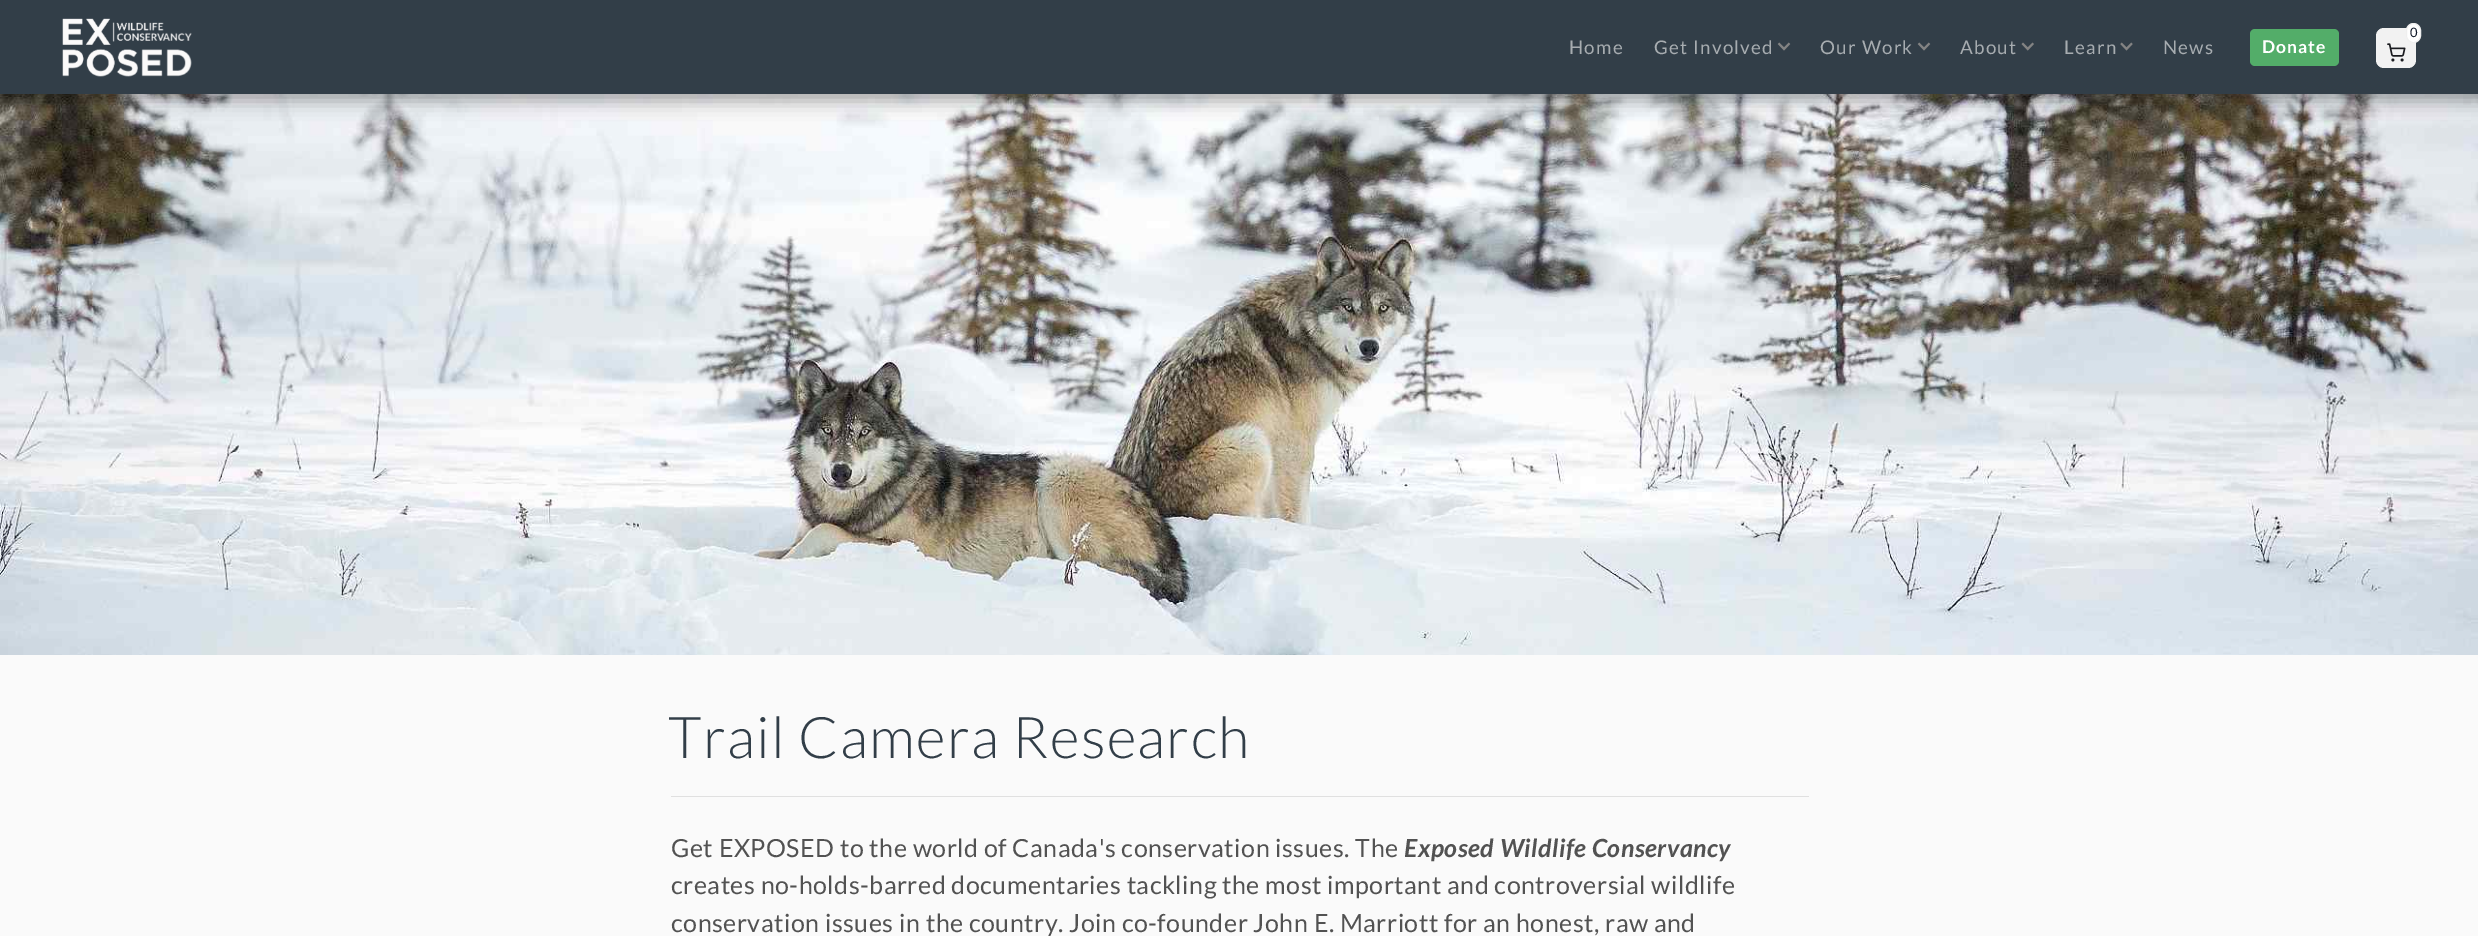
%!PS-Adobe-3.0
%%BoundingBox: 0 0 2478 936
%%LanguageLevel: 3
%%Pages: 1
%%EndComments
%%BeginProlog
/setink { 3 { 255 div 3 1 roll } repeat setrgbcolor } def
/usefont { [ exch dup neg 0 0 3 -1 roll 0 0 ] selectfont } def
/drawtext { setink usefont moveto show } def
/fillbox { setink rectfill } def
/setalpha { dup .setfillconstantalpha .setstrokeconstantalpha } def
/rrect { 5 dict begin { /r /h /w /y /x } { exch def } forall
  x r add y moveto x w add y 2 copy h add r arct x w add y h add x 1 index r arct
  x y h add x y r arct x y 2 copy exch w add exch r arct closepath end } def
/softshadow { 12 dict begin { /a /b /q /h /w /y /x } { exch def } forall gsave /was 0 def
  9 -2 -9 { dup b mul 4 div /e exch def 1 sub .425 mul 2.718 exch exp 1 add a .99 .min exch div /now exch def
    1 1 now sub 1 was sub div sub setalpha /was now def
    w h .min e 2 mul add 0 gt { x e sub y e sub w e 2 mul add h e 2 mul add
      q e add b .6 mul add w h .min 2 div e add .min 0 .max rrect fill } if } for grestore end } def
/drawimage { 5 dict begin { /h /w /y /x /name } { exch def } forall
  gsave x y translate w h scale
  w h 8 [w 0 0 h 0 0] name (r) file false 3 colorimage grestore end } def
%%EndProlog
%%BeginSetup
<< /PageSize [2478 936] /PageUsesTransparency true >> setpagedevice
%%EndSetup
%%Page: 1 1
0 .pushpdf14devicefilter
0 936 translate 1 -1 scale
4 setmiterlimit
0 0 2478 936 250 250 250 fillbox
(assets/img6.rgb) 0 94 2478 561 drawimage
0 0 0 setink
-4 0 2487 101 0 9 0.34 softshadow
0 0 2478 94 50 62 72 fillbox
(assets/img1.rgb) 62 18 130 59 drawimage
/Lato-Regular 18.75 usefont
167 172 176 setink
1569 54 moveto 1.25 0 (Home) ashow
1654 54 moveto 1.25 0 (Get Involved) ashow
(assets/img2.rgb) 1777 42 14 9 drawimage
1820 54 moveto 1.25 0 (Our Work) ashow
(assets/img2.rgb) 1917 42 14 9 drawimage
1960 54 moveto 1.25 0 (About) ashow
(assets/img3.rgb) 2021 42 13 9 drawimage
2064 54 moveto 1.25 0 (Learn) ashow
(assets/img4.rgb) 2120 42 13 9 drawimage
2163 54 moveto 1.25 0 (News) ashow
242 242 242 setink
2376 28 40 40 8 rrect fill
255 255 255 setink
2406.5 23.5 14 19 7 rrect gsave fill grestore
239 239 239 setink
stroke
(0) 2410 37 /Lato-Regular 13 16 24 40 drawtext
(assets/img5.rgb) 2387 43 19 19 drawimage
83 173 105 setink
2250 29 89 37 5 rrect fill
/Lato-Bold 17.5 usefont
255 255 255 setink
2262 53 moveto 1 0 (Donate) ashow
/Lato-Light 57.5 usefont
50 62 72 setink
668 758 moveto 1.25 0 (Trail Camera Research) ashow
671 796 1138 1 224 224 224 fillbox
/Lato-Regular 25 usefont
82 82 82 setink
671 857 moveto 0.5 0 (Get EXPOSED to the world of Canada's conservation issues. The) ashow
/Lato-BoldItalic 25 usefont
1404 857 moveto 0.5 0 (Exposed Wildlife Conservancy) ashow
/Lato-Regular 25 usefont
671 894 moveto 0.5 0 (creates no-holds-barred documentaries tackling the most important and controversial wildlife) ashow
671 932 moveto 0.5 0 (conservation issues in the country. Join co-founder John E. Marriott for an honest, raw and) ashow
.poppdf14devicefilter showpage
%%EOF
